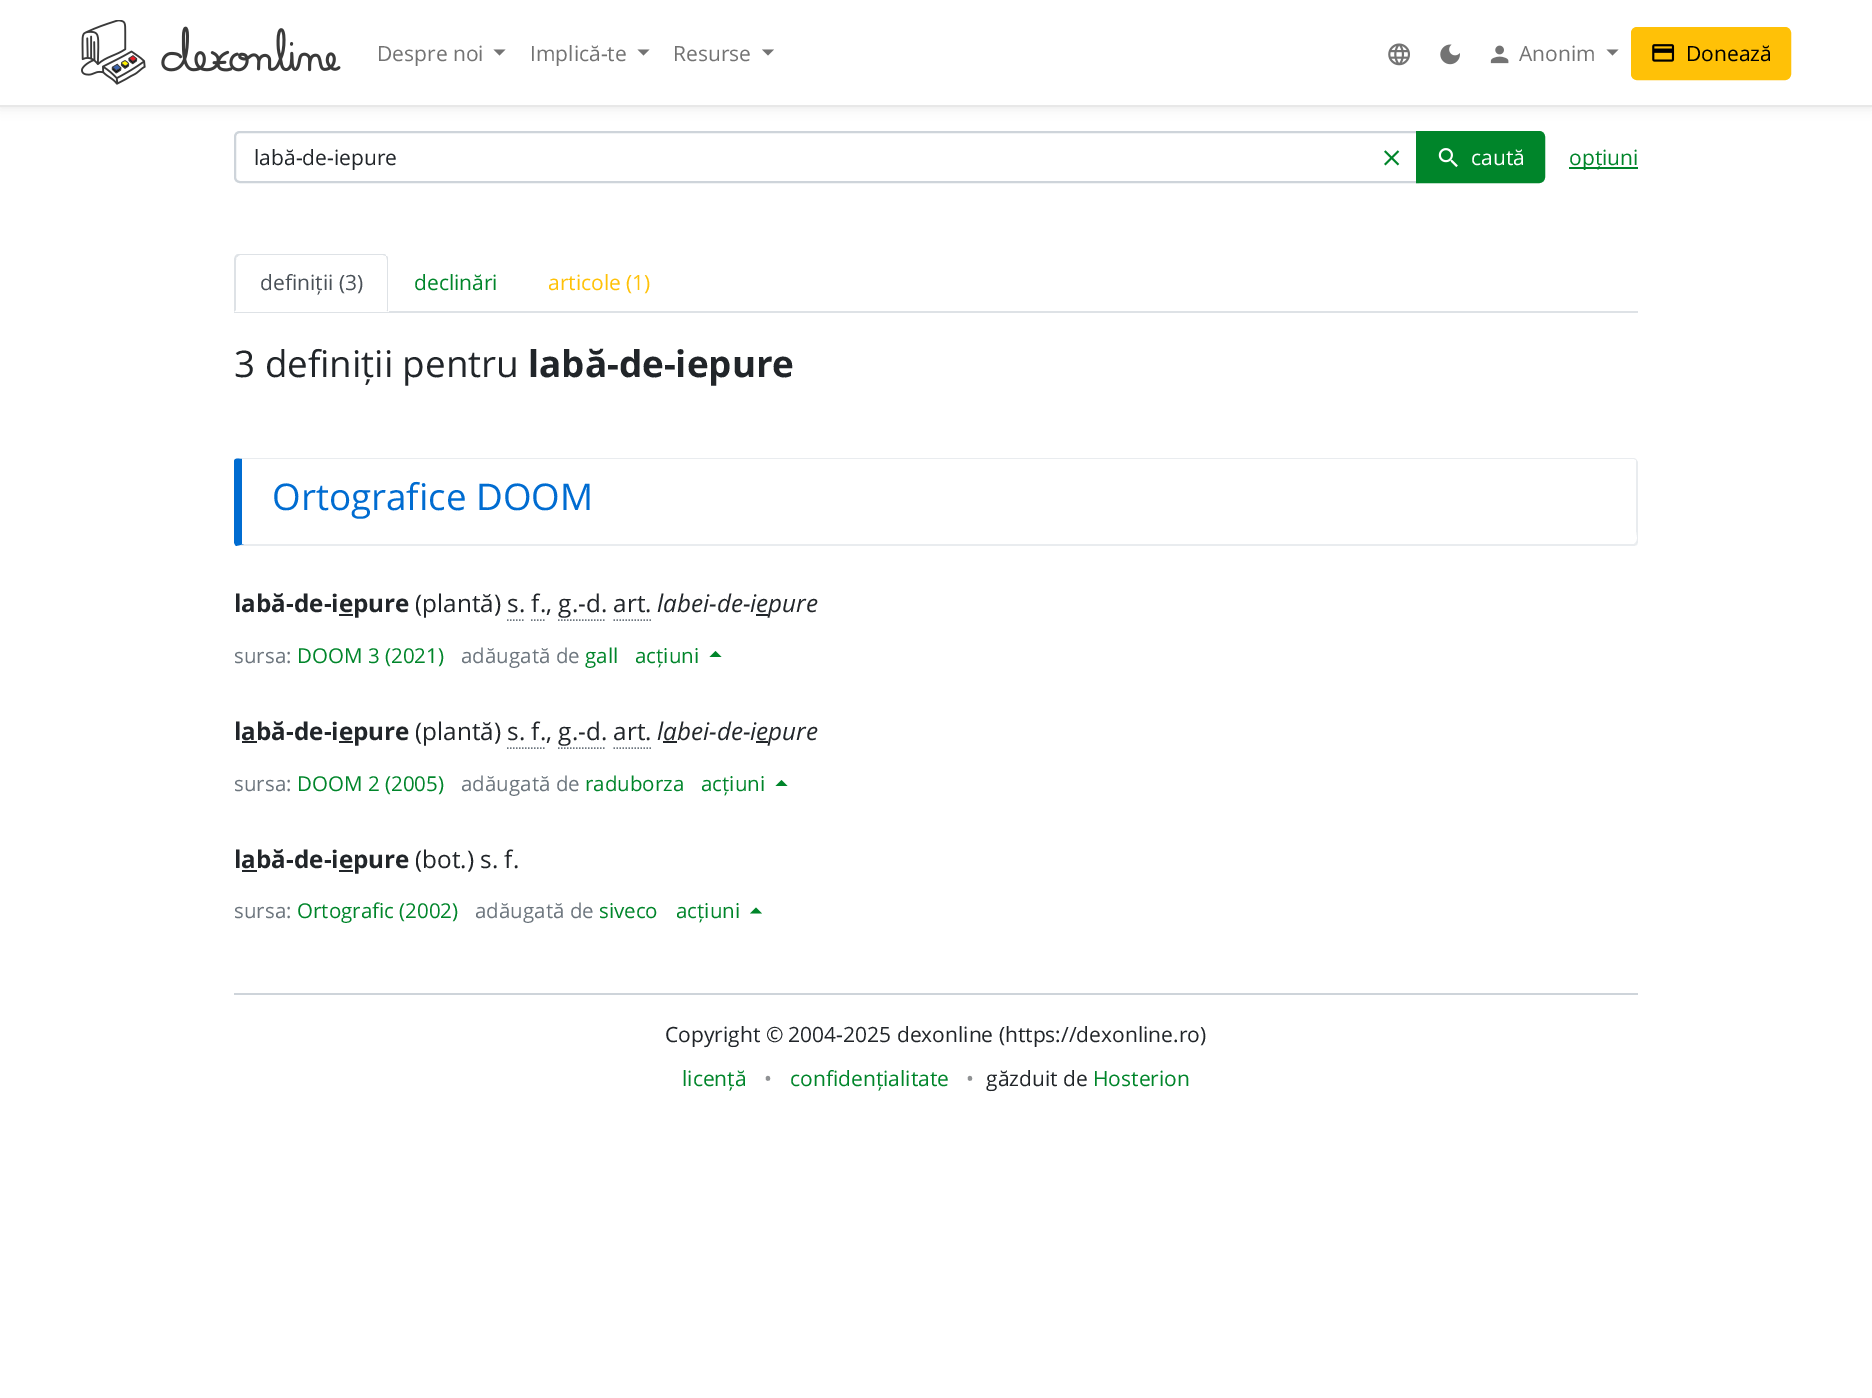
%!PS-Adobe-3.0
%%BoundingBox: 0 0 1872 1398
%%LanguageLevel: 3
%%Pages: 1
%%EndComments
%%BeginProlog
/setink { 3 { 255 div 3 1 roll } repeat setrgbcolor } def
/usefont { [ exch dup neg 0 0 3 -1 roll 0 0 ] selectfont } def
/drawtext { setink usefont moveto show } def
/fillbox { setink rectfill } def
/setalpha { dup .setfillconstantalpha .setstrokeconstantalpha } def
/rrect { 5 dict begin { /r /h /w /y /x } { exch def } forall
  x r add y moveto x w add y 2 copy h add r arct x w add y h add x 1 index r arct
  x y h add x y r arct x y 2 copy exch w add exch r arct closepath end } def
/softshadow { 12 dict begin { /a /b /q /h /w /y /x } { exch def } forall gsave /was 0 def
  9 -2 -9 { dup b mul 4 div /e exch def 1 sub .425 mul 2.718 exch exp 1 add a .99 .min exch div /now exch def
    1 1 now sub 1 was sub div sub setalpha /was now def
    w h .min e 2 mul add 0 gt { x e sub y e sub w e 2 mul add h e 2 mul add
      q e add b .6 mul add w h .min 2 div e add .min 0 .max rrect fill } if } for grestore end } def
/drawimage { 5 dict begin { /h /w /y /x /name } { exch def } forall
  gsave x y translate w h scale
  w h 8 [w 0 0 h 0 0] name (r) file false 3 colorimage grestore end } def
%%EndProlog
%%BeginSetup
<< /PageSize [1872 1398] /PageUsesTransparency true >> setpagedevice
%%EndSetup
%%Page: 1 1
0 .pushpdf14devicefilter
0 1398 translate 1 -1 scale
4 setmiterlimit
0 0 1872 1398 255 255 255 fillbox
0 0 0 setink
0 0 1872 107 0 6 0.1 softshadow
0 0 1872 105 255 255 255 fillbox
0 105 1872 2 232 232 232 fillbox
(assets/img1.rgb) 81 20 260 65 drawimage
(Despre noi) 377 61 /OpenSans-Regular 21 115 115 115 drawtext
493.5 49.5 moveto 505.5 49.5 lineto 499.5 55.5 lineto closepath fill
(Implică-te) 530 61 /OpenSans-Regular 21 115 115 115 drawtext
637.5 49.5 moveto 649.5 49.5 lineto 643.5 55.5 lineto closepath fill
(Resurse) 673 61 /OpenSans-Regular 21 115 115 115 drawtext
762 49.5 moveto 774 49.5 lineto 768 55.5 lineto closepath fill
(assets/img2.rgb) 1388 43 22 23 drawimage
(assets/img3.rgb) 1440 44 20 21 drawimage
(assets/img4.rgb) 1490 45 19 19 drawimage
(Anonim) 1519 61 /OpenSans-Regular 21 115 115 115 drawtext
1606.5 49.5 moveto 1618.5 49.5 lineto 1612.5 55.5 lineto closepath fill
255 193 7 setink
1632 28 158 51 5 rrect gsave fill grestore
2 setlinewidth
stroke
(assets/img5.rgb) 1652 44 23 18 drawimage
(Donează) 1686 61 /OpenSans-Regular 21 0 0 0 drawtext
206 212 218 setink
240 132 moveto 1418 132 lineto 1418 182 lineto 240 182 lineto 237 182 235 180 235 177 curveto 235 137 lineto 235 134 237 132 240 132 curveto closepath stroke
(labă-de-iepure) 254 165 /OpenSans-Regular 21 33 37 41 drawtext
(assets/img6.rgb) 1384 150 16 16 drawimage
0 133 42 setink
1417 132 moveto 1539 132 lineto 1542 132 1544 134 1544 137 curveto 1544 177 lineto 1544 180 1542 182 1539 182 curveto 1417 182 lineto closepath gsave fill grestore
stroke
(assets/img7.rgb) 1438 148 20 20 drawimage
(caută) 1471 165 /OpenSans-Regular 21 255 255 255 drawtext
1569 167 69 2 0 133 42 fillbox
(opțiuni) 1569 165 /OpenSans-Regular 21 0 133 42 drawtext
234 311 1404 2 222 226 230 fillbox
255 255 255 setink
240 254 moveto 383 254 lineto 386.5 254 389 256.5 389 260 curveto 389 312 lineto 234 312 lineto 234 260 lineto 234 256.5 236.5 254 240 254 curveto closepath fill
222 226 230 setink
240 254 moveto 239 254 237 254 236 255 curveto 237 257 lineto 238 256 239 255 240 255 curveto 383 255 lineto 386 256 lineto 386 254 384 254 382 254 curveto closepath fill
388 312 moveto 388 260 lineto 388 258 388 256 386 256 curveto 386 257 387 258 387 260 curveto 387 310 lineto 386 310 lineto closepath fill
255 255 255 setink
388 312 moveto 386 310 lineto 236 310 lineto 234 312 lineto closepath fill
222 226 230 setink
234 312 moveto 236 310 lineto 236 260 lineto 236 259 236 257 237 257 curveto 236 255 lineto 235 256 234 258 234 260 curveto closepath fill
(definiții \(3\)) 260 290 /OpenSans-Regular 21 73 80 87 drawtext
(declinări) 414 290 /OpenSans-Regular 21 0 133 42 drawtext
(articole \(1\)) 548 290 /OpenSans-Regular 21 255 193 7 drawtext
(3 definiții pentru) 234 377 /OpenSans-Regular 36.75 33 37 41 drawtext
(labă-de-iepure) 528 377 /OpenSans-Bold 36.75 33 37 41 drawtext
233 236 239 setink
238 458 moveto 237 458 lineto 242 459 lineto 1634 459 lineto 1636 460 lineto 1636 459 lineto 1634 458 lineto closepath fill
1636 459 moveto 1638 462 lineto 1638 542 lineto 1637 545 lineto 1635 543 lineto 1639 540 1636 534 1636 529 curveto 1636 462 lineto 1636 460 lineto closepath fill
238 546 moveto 1634 546 lineto 1637 545 lineto 1635 543 lineto 1634 544 lineto 244 544 lineto 236 546 lineto closepath fill
0 108 209 setink
234 462 moveto 234 542 lineto 234 543 235 545 236 546 curveto 244 544 lineto 242 544 lineto 242 459 lineto 239 459 234 457 234 462 curveto closepath fill
(Ortografice DOOM) 272 510 /OpenSans-Regular 36.75 0 108 209 drawtext
(labă-de-iepure) 234 612 /OpenSans-Bold 24.25 33 37 41 drawtext
339 614 14 2 33 37 41 fillbox
(\(plantă\) s. f., g.-d. art.) 415 612 /OpenSans-Regular 24.25 33 37 41 drawtext
(labei-de-ie) 657 612 /OpenSans-Italic 24.25 33 37 41 drawtext
756 614 12 2 33 37 41 fillbox
(pure) 768 612 /OpenSans-Italic 24.25 33 37 41 drawtext
108 117 125 setink
1.5 setlinewidth
[1.5 1.5] 0 setdash
507 620 moveto 525 620 lineto 531 620 moveto 546 620 lineto stroke
558 620 moveto 606 620 lineto stroke
613.5 620 moveto 651 620 lineto stroke
(sursa:) 234 663 /OpenSans-Regular 20.5 108 117 125 drawtext
(DOOM 3 \(2021\)) 297 663 /OpenSans-Regular 20.5 0 133 42 drawtext
(adăugată de) 461 663 /OpenSans-Regular 20.5 108 117 125 drawtext
(gall) 585 663 /OpenSans-Regular 20.5 0 133 42 drawtext
(acțiuni) 635 663 /OpenSans-Regular 20.5 0 133 42 drawtext
721.5 657 moveto 709.5 657 lineto 715.5 651 lineto closepath fill
(labă-de-iepure) 234 740 /OpenSans-Bold 24.25 33 37 41 drawtext
242 741 15 2 33 37 41 fillbox
339 741 14 2 33 37 41 fillbox
(\(plantă\) s. f., g.-d. art.) 415 740 /OpenSans-Regular 24.25 33 37 41 drawtext
(labei-de-ie) 657 740 /OpenSans-Italic 24.25 33 37 41 drawtext
663 741 14 2 33 37 41 fillbox
756 741 12 2 33 37 41 fillbox
(pure) 768 740 /OpenSans-Italic 24.25 33 37 41 drawtext
108 117 125 setink
507 748 moveto 546 748 lineto stroke
558 748 moveto 606 748 lineto stroke
613.5 748 moveto 651 748 lineto stroke
(sursa:) 234 791 /OpenSans-Regular 20.5 108 117 125 drawtext
(DOOM 2 \(2005\)) 297 791 /OpenSans-Regular 20.5 0 133 42 drawtext
(adăugată de) 461 791 /OpenSans-Regular 20.5 108 117 125 drawtext
(raduborza) 585 791 /OpenSans-Regular 20.5 0 133 42 drawtext
(acțiuni) 701 791 /OpenSans-Regular 20.5 0 133 42 drawtext
787.5 786 moveto 775.5 786 lineto 781.5 780 lineto closepath fill
(labă-de-iepure) 234 868 /OpenSans-Bold 24.25 33 37 41 drawtext
242 870 15 2 33 37 41 fillbox
339 870 14 2 33 37 41 fillbox
(\(bot.\) s. f.) 415 868 /OpenSans-Regular 24.25 33 37 41 drawtext
(sursa:) 234 918 /OpenSans-Regular 20.5 108 117 125 drawtext
(Ortografic \(2002\)) 297 918 /OpenSans-Regular 20.5 0 133 42 drawtext
(adăugată de) 475 918 /OpenSans-Regular 20.5 108 117 125 drawtext
(siveco) 599 918 /OpenSans-Regular 20.5 0 133 42 drawtext
(acțiuni) 676 918 /OpenSans-Regular 20.5 0 133 42 drawtext
762 913.5 moveto 750 913.5 lineto 756 907.5 lineto closepath fill
234 993 1404 2 206 212 218 fillbox
(Copyright © 2004-2025 dexonline \(https://dexonline.ro\)) 665 1042 /OpenSans-Regular 21 33 37 41 drawtext
(licență) 682 1086 /OpenSans-Regular 21 0 133 42 drawtext
(•) 764 1086 /OpenSans-Regular 21 144 146 148 drawtext
(confidențialitate) 790 1086 /OpenSans-Regular 21 0 133 42 drawtext
(•) 966 1086 /OpenSans-Regular 21 144 146 148 drawtext
(găzduit de) 986 1086 /OpenSans-Regular 21 33 37 41 drawtext
(Hosterion) 1093 1086 /OpenSans-Regular 21 0 133 42 drawtext
.poppdf14devicefilter showpage
%%EOF
